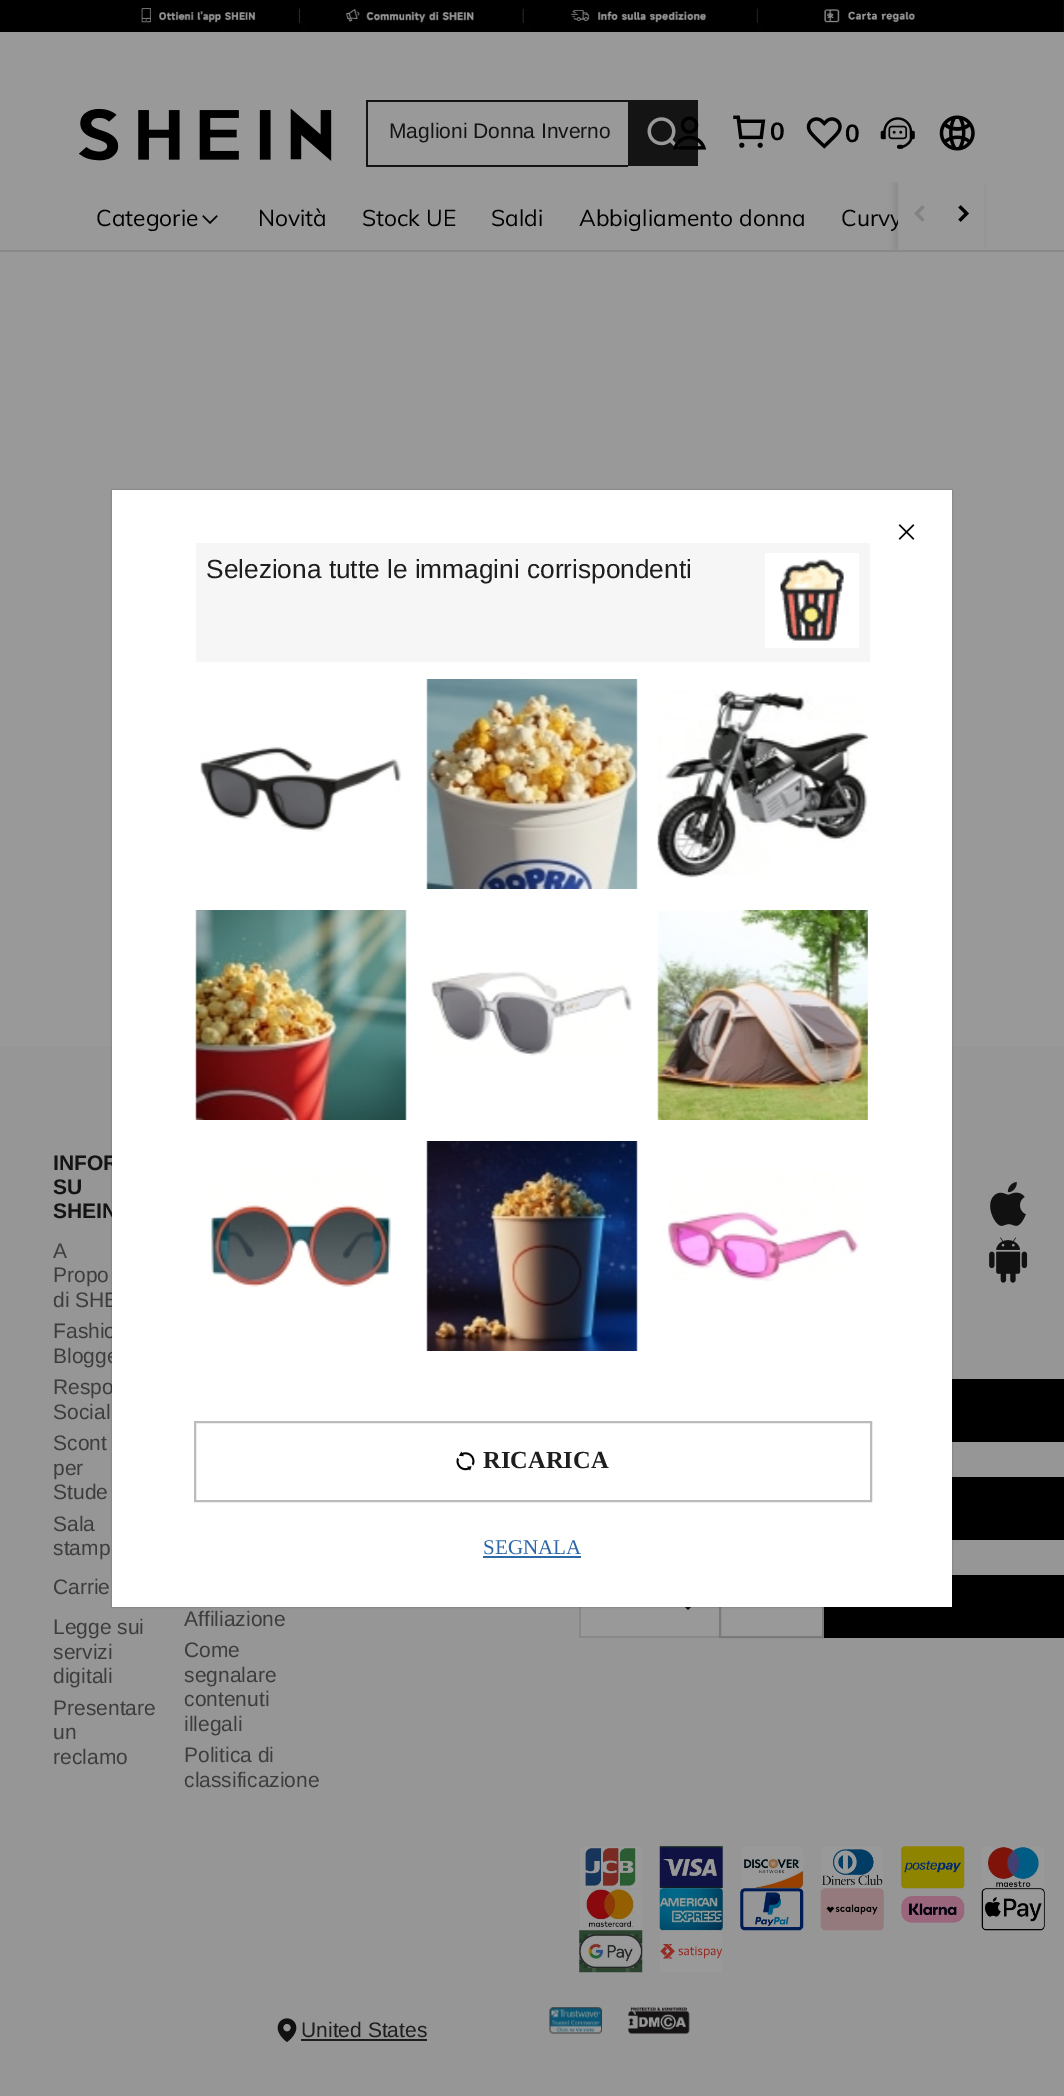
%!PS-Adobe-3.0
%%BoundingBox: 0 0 1064 2096
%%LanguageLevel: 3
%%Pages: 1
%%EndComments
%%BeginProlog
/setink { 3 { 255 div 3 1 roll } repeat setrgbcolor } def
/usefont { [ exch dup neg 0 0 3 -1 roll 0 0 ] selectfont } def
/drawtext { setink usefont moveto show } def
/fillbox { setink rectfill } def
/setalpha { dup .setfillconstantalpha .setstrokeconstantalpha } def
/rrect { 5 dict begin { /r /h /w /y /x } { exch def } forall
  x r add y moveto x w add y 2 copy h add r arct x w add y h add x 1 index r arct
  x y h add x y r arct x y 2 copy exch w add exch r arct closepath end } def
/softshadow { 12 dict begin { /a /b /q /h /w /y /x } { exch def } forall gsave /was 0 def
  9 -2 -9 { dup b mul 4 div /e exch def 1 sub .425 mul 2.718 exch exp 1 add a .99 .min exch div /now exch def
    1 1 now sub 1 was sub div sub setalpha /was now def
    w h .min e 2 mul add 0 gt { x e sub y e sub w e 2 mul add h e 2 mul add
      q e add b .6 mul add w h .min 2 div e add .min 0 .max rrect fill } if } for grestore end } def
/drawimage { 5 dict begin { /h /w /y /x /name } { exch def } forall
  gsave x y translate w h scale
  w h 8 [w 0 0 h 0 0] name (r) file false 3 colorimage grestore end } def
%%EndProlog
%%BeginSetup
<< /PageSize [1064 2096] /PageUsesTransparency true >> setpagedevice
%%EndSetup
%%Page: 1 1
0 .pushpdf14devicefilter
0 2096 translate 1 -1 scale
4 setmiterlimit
0 0 1064 2096 153 153 153 fillbox
(assets/img1.rgb) 0 0 1064 32 drawimage
(assets/img2.rgb) 79 109 253 52 drawimage
366 100 262 2 20 20 20 fillbox
366 165 262 2 20 20 20 fillbox
366 100 2 66 20 20 20 fillbox
(Maglioni Donna Inverno) 389 138 /LiberationSans-Regular 21 20 20 20 drawtext
628 100 70 66 20 20 20 fillbox
(assets/img3.rgb) 647 117 33 33 drawimage
(assets/img4.rgb) 673 116 34 34 drawimage
(assets/img5.rgb) 733 115 33 33 drawimage
(0) 770 140 /Muli-Bold 24.5 0 0 0 drawtext
(assets/img6.rgb) 806 117 36 32 drawimage
(0) 845 142 /Muli-Bold 24.5 0 0 0 drawtext
(assets/img7.rgb) 880 117 35 32 drawimage
(assets/img8.rgb) 939 115 36 36 drawimage
0 250 1064 2 137 137 137 fillbox
(Categorie) 96 226 /Muli-Regular 22.75 0 0 0 drawtext
(assets/img9.rgb) 202 215 16 9 drawimage
(Novità) 258 226 /Muli-Regular 22.75 0 0 0 drawtext
(Stock UE) 362 226 /Muli-Regular 22.75 0 0 0 drawtext
(Saldi) 491 226 /Muli-Regular 22.75 0 0 0 drawtext
(Abbigliamento donna) 579 226 /Muli-Regular 22.75 0 0 0 drawtext
(Curvy) 841 226 /Muli-Regular 22.75 0 0 0 drawtext
gsave
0 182 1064 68 rectclip
894 182 88 68 0 2.5 0.08 softshadow
grestore
898 182 86 68 153 153 153 fillbox
(assets/img10.rgb) 914 205 11 17 drawimage
(assets/img11.rgb) 958 205 11 17 drawimage
0 1047 1064 1049 150 150 150 fillbox
(INFOR) 53 1170 /LiberationSans-Bold 21 20 20 20 drawtext
(SU) 53 1194 /LiberationSans-Bold 21 20 20 20 drawtext
(SHEIN) 53 1218 /LiberationSans-Bold 21 20 20 20 drawtext
(A) 53 1258 /LiberationSans-Regular 21 61 61 61 drawtext
(Propo) 53 1282 /LiberationSans-Regular 21 61 61 61 drawtext
(di SHE) 53 1307 /LiberationSans-Regular 21 61 61 61 drawtext
(Fashio) 53 1338 /LiberationSans-Regular 21 61 61 61 drawtext
(Blogge) 53 1363 /LiberationSans-Regular 21 61 61 61 drawtext
(Respo) 53 1394 /LiberationSans-Regular 21 61 61 61 drawtext
(Social) 53 1419 /LiberationSans-Regular 21 61 61 61 drawtext
(Scont) 53 1450 /LiberationSans-Regular 21 61 61 61 drawtext
(per) 53 1475 /LiberationSans-Regular 21 61 61 61 drawtext
(Stude) 53 1499 /LiberationSans-Regular 21 61 61 61 drawtext
(Sala) 53 1531 /LiberationSans-Regular 21 61 61 61 drawtext
(stamp) 53 1555 /LiberationSans-Regular 21 61 61 61 drawtext
(Carrie) 53 1594 /LiberationSans-Regular 21 61 61 61 drawtext
(Legge sui) 53 1634 /LiberationSans-Regular 21 61 61 61 drawtext
(servizi) 53 1659 /LiberationSans-Regular 21 61 61 61 drawtext
(digitali) 53 1683 /LiberationSans-Regular 21 61 61 61 drawtext
(Presentare) 53 1715 /LiberationSans-Regular 21 61 61 61 drawtext
(un) 53 1739 /LiberationSans-Regular 21 61 61 61 drawtext
(reclamo) 53 1764 /LiberationSans-Regular 21 61 61 61 drawtext
(Affiliazione) 184 1626 /LiberationSans-Regular 21 61 61 61 drawtext
(Come) 184 1657 /LiberationSans-Regular 21 61 61 61 drawtext
(segnalare) 184 1682 /LiberationSans-Regular 21 61 61 61 drawtext
(contenuti) 184 1706 /LiberationSans-Regular 21 61 61 61 drawtext
(illegali) 184 1731 /LiberationSans-Regular 21 61 61 61 drawtext
(Politica di) 184 1762 /LiberationSans-Regular 21 61 61 61 drawtext
(classificazione) 184 1787 /LiberationSans-Regular 21 61 61 61 drawtext
(assets/img12.rgb) 990 1182 36 44 drawimage
(assets/img13.rgb) 989 1237 39 46 drawimage
952 1379 112 63 0 0 0 fillbox
952 1477 112 63 0 0 0 fillbox
581 1607 138 29 153 153 153 fillbox
579 1636 140 2 137 137 137 fillbox
579 1607 2 31 137 137 137 fillbox
20 20 20 setink
681 1603 moveto 695 1603 lineto 688 1610 lineto closepath fill
721 1607 101 29 153 153 153 fillbox
122 122 122 setink
2 setlinewidth
720 1576 103 61 rectstroke
824 1575 240 63 0 0 0 fillbox
(assets/img14.rgb) 580 1847 62 41 drawimage
(assets/img15.rgb) 659 1846 64 43 drawimage
(assets/img16.rgb) 741 1847 63 42 drawimage
(assets/img17.rgb) 821 1847 62 41 drawimage
(assets/img18.rgb) 901 1846 64 43 drawimage
(assets/img19.rgb) 982 1847 62 41 drawimage
(assets/img20.rgb) 580 1889 62 41 drawimage
(assets/img21.rgb) 659 1888 64 43 drawimage
(assets/img22.rgb) 740 1888 64 43 drawimage
(assets/img23.rgb) 820 1888 64 43 drawimage
(assets/img24.rgb) 901 1896 64 27 drawimage
(assets/img25.rgb) 981 1888 64 43 drawimage
(assets/img26.rgb) 579 1930 64 43 drawimage
(assets/img27.rgb) 660 1930 62 42 drawimage
(assets/img28.rgb) 277 2018 20 24 drawimage
(United States) 301 2037 /LiberationSans-Regular 21 30 30 30 drawtext
301 2039 126 2 30 30 30 fillbox
(assets/img29.rgb) 549 2007 53 27 drawimage
(assets/img30.rgb) 628 2007 62 27 drawimage
0 0 0 setink
112 490 840 1117 0 1 0.3 softshadow
112 490 840 1117 255 255 255 fillbox
(assets/img31.rgb) 898 524 17 16 drawimage
196 543 674 119 246 246 246 fillbox
(Seleziona tutte le immagini corrispondenti) 206 578 /LiberationSans-Regular 26.25 30 30 30 drawtext
765 553 94 95 255 255 255 fillbox
(assets/img32.rgb) 780 559 64 82 drawimage
(assets/img33.rgb) 200 746 202 86 drawimage
(assets/img34.rgb) 426 679 212 210 drawimage
(assets/img35.rgb) 657 690 211 188 drawimage
(assets/img36.rgb) 195 910 212 210 drawimage
(assets/img37.rgb) 431 971 201 85 drawimage
(assets/img38.rgb) 657 910 211 210 drawimage
(assets/img39.rgb) 209 1170 183 117 drawimage
(assets/img40.rgb) 426 1141 212 210 drawimage
(assets/img41.rgb) 667 1170 192 111 drawimage
187 187 187 setink
195 1422 676 79 rectstroke
(assets/img42.rgb) 456 1451 19 20 drawimage
(RICARICA) 483 1468 /LiberationSerif-Bold 24.5 30 30 30 drawtext
(SEGNALA) 483 1554 /LiberationSerif-Regular 21 45 104 168 drawtext
483 1556 98 2 45 104 168 fillbox
.poppdf14devicefilter showpage
%%EOF
